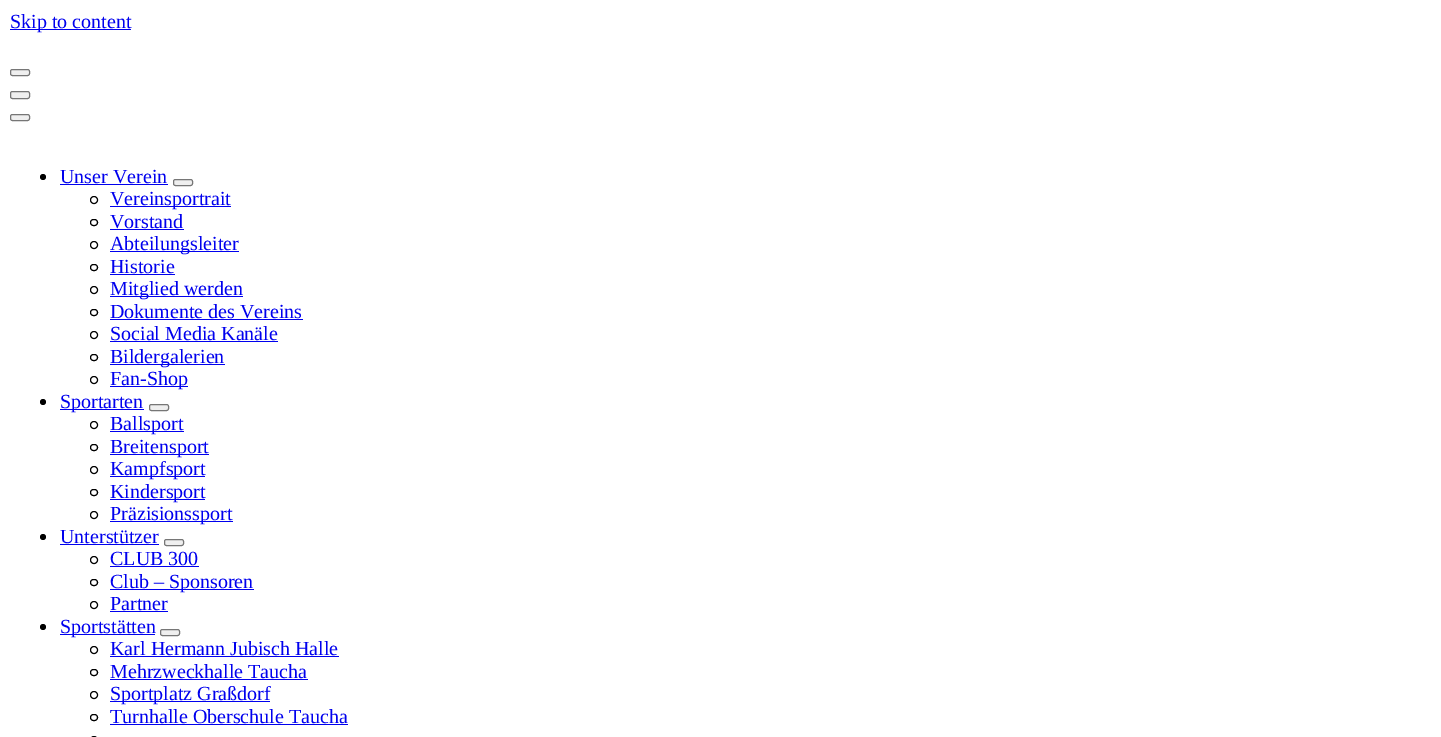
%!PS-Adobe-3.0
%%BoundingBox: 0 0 1441 737
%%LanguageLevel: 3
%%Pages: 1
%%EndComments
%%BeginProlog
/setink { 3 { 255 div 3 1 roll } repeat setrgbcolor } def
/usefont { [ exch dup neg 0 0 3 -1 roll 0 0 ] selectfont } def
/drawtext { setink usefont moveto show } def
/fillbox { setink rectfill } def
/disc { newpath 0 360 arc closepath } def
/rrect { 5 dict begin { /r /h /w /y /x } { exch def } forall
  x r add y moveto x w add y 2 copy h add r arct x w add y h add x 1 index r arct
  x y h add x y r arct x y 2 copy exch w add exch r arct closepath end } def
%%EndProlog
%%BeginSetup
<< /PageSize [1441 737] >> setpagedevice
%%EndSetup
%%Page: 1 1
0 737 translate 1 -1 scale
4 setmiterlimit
0 0 1441 737 255 255 255 fillbox
10 29 121 1 0 0 238 fillbox
(Skip to content) 10 28 /LiberationSerif-Regular 20 0 0 238 drawtext
239 239 239 setink
10.5 69.5 19 6 2 rrect gsave fill grestore
118 118 118 setink
stroke
239 239 239 setink
10.5 91.5 19 7 2 rrect gsave fill grestore
118 118 118 setink
stroke
239 239 239 setink
10.5 114.5 19 6 2 rrect gsave fill grestore
118 118 118 setink
stroke
0 0 0 setink
43 177 3 disc fill
(Unser Verein) 60 183 /LiberationSerif-Regular 20 0 0 238 drawtext
60 184 108 1 0 0 238 fillbox
239 239 239 setink
173.5 179.5 19 6 2 rrect gsave fill grestore
118 118 118 setink
stroke
0 0 0 setink
94 200 3.5 disc stroke
110 206 121 1 0 0 238 fillbox
(Vereinsportrait) 110 205 /LiberationSerif-Regular 20 0 0 238 drawtext
0 0 0 setink
90.5 219.5 7 6 3 rrect stroke
(Vorstand) 110 228 /LiberationSerif-Regular 20 0 0 238 drawtext
110 229 74 1 0 0 238 fillbox
0 0 0 setink
94 245 3.5 disc stroke
110 251 129 1 0 0 238 fillbox
(Abteilungsleiter) 110 250 /LiberationSerif-Regular 20 0 0 238 drawtext
0 0 0 setink
90.5 264.5 7 6 3 rrect stroke
(Historie) 110 273 /LiberationSerif-Regular 20 0 0 238 drawtext
110 274 65 1 0 0 238 fillbox
0 0 0 setink
94 290 3.5 disc stroke
110 296 133 1 0 0 238 fillbox
(Mitglied werden) 110 295 /LiberationSerif-Regular 20 0 0 238 drawtext
0 0 0 setink
90.5 309.5 7 6 3 rrect stroke
(Dokumente des Vereins) 110 318 /LiberationSerif-Regular 20 0 0 238 drawtext
110 319 193 1 0 0 238 fillbox
0 0 0 setink
94 335 3.5 disc stroke
(Social Media Kanäle) 110 340 /LiberationSerif-Regular 20 0 0 238 drawtext
110 341 168 1 0 0 238 fillbox
0 0 0 setink
90.5 354.5 7 6 3 rrect stroke
110 364 115 1 0 0 238 fillbox
(Bildergalerien) 110 363 /LiberationSerif-Regular 20 0 0 238 drawtext
0 0 0 setink
94 380 3.5 disc stroke
110 386 78 1 0 0 238 fillbox
(Fan-Shop) 110 385 /LiberationSerif-Regular 20 0 0 238 drawtext
0 0 0 setink
43 402 3 disc fill
60 409 84 1 0 0 238 fillbox
(Sportarten) 60 408 /LiberationSerif-Regular 20 0 0 238 drawtext
239 239 239 setink
149.5 404.5 19 6 2 rrect gsave fill grestore
118 118 118 setink
stroke
0 0 0 setink
94 425 3.5 disc stroke
110 431 74 1 0 0 238 fillbox
(Ballsport) 110 430 /LiberationSerif-Regular 20 0 0 238 drawtext
0 0 0 setink
90.5 444.5 7 6 3 rrect stroke
110 454 99 1 0 0 238 fillbox
(Breitensport) 110 453 /LiberationSerif-Regular 20 0 0 238 drawtext
0 0 0 setink
94 470 3.5 disc stroke
110 476 95 1 0 0 238 fillbox
(Kampfsport) 110 475 /LiberationSerif-Regular 20 0 0 238 drawtext
0 0 0 setink
90.5 489.5 7 6 3 rrect stroke
110 499 95 1 0 0 238 fillbox
(Kindersport) 110 498 /LiberationSerif-Regular 20 0 0 238 drawtext
0 0 0 setink
94 515 3.5 disc stroke
110 521 123 1 0 0 238 fillbox
(Präzisionssport) 110 520 /LiberationSerif-Regular 20 0 0 238 drawtext
0 0 0 setink
43 537 3 disc fill
(Unterstützer) 60 543 /LiberationSerif-Regular 20 0 0 238 drawtext
60 544 99 1 0 0 238 fillbox
239 239 239 setink
164.5 539.5 19 6 2 rrect gsave fill grestore
118 118 118 setink
stroke
0 0 0 setink
94 560 3.5 disc stroke
(CLUB 300) 110 565 /LiberationSerif-Regular 20 0 0 238 drawtext
110 566 89 1 0 0 238 fillbox
0 0 0 setink
90.5 579.5 7 6 3 rrect stroke
110 589 144 1 0 0 238 fillbox
(Club – Sponsoren) 110 588 /LiberationSerif-Regular 20 0 0 238 drawtext
0 0 0 setink
94 605 3.5 disc stroke
(Partner) 110 610 /LiberationSerif-Regular 20 0 0 238 drawtext
110 611 58 1 0 0 238 fillbox
0 0 0 setink
43 627 3 disc fill
60 634 95 1 0 0 238 fillbox
(Sportstätten) 60 633 /LiberationSerif-Regular 20 0 0 238 drawtext
239 239 239 setink
160.5 629.5 19 6 2 rrect gsave fill grestore
118 118 118 setink
stroke
0 0 0 setink
94 650 3.5 disc stroke
(Karl Hermann Jubisch Halle) 110 655 /LiberationSerif-Regular 20 0 0 238 drawtext
110 656 229 1 0 0 238 fillbox
0 0 0 setink
90.5 669.5 7 6 3 rrect stroke
(Mehrzweckhalle Taucha) 110 678 /LiberationSerif-Regular 20 0 0 238 drawtext
110 679 198 1 0 0 238 fillbox
0 0 0 setink
94 695 3.5 disc stroke
110 701 160 1 0 0 238 fillbox
(Sportplatz Graßdorf) 110 700 /LiberationSerif-Regular 20 0 0 238 drawtext
0 0 0 setink
90.5 714.5 7 6 3 rrect stroke
(Turnhalle Oberschule Taucha) 110 723 /LiberationSerif-Regular 20 0 0 238 drawtext
110 724 238 1 0 0 238 fillbox
0 0 0 setink
90.5 736.5 7 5 3.5 rrect stroke
showpage
%%EOF
